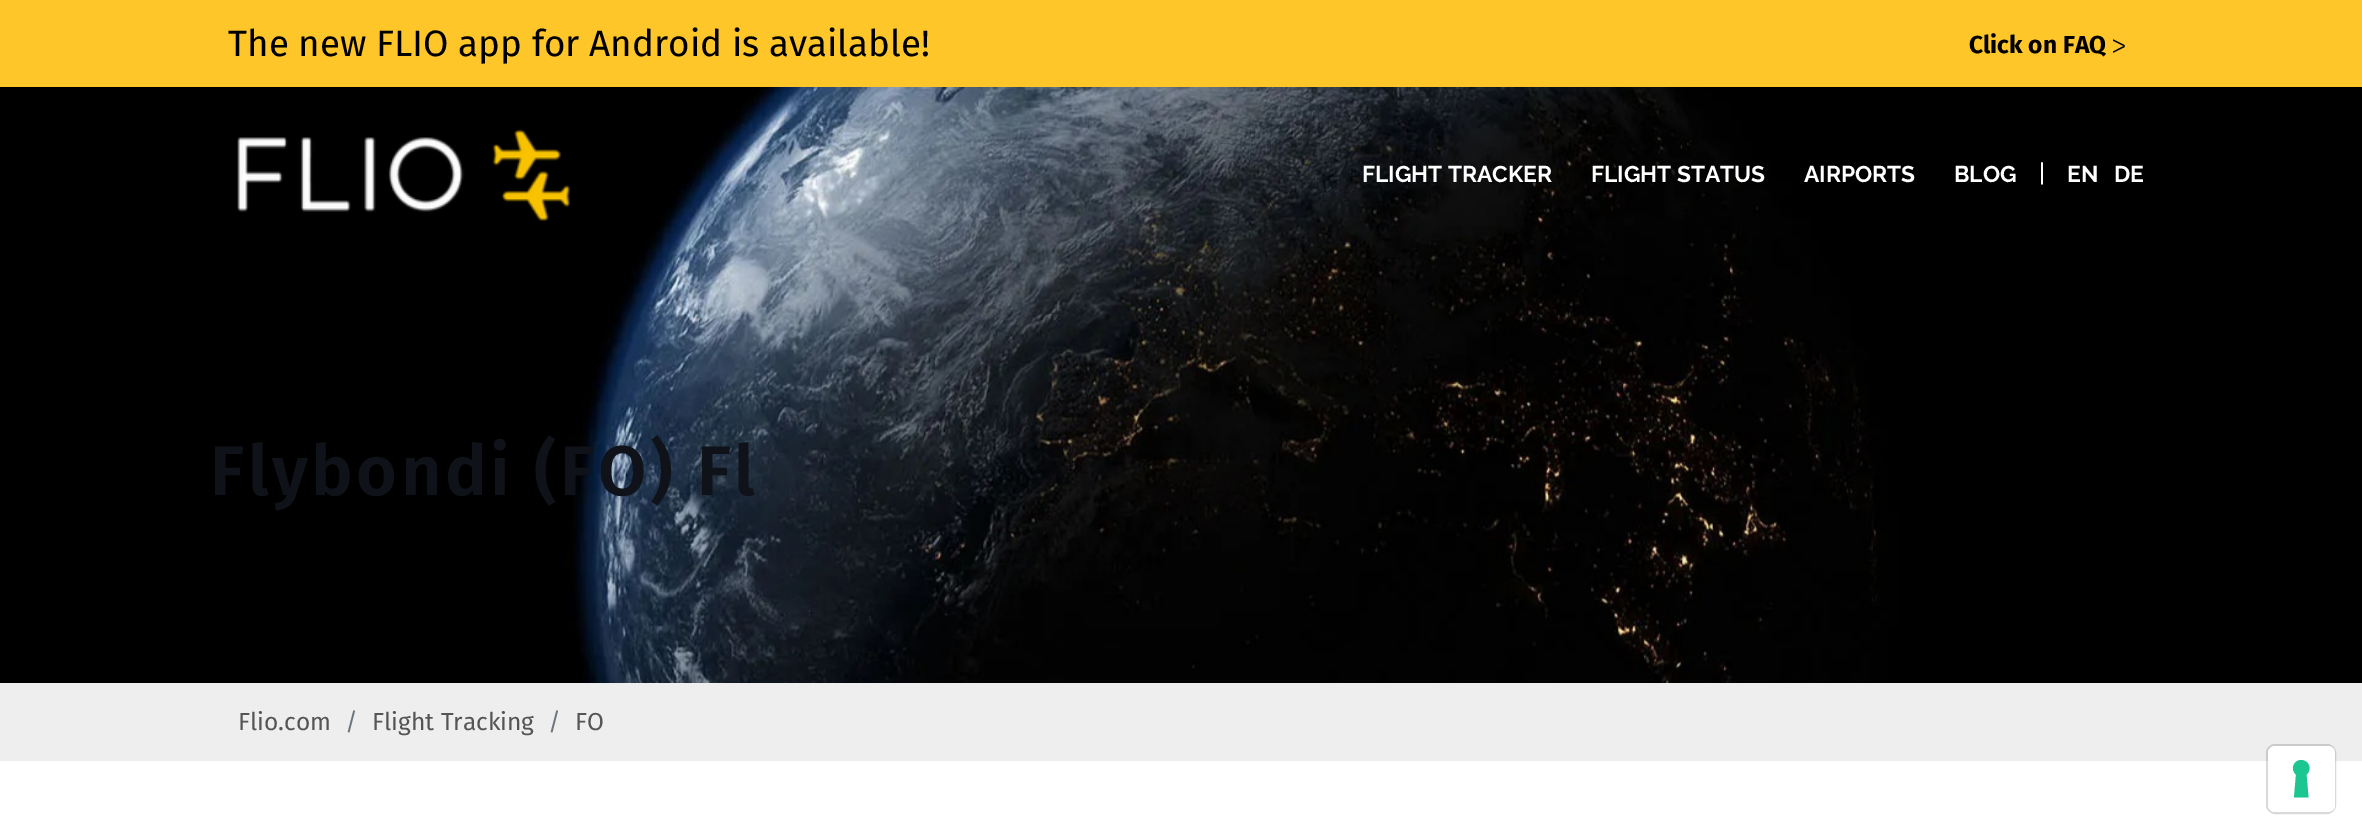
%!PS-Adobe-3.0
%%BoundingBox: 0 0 2362 840
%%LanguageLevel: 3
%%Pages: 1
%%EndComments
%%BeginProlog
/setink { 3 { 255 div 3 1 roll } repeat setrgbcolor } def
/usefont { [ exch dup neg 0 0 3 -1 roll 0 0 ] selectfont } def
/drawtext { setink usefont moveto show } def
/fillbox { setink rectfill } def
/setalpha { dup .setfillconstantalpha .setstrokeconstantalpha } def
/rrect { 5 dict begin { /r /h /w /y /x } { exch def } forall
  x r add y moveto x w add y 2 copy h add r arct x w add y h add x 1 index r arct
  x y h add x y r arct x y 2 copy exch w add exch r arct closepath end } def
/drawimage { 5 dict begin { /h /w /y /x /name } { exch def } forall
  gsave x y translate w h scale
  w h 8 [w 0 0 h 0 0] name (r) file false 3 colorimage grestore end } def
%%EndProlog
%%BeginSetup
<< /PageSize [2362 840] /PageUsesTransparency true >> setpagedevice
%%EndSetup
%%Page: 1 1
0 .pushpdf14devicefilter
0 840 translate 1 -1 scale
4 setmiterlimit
0 0 2362 840 255 255 255 fillbox
0 0 2362 87 255 198 41 fillbox
(The new FLIO app for Android is available!) 228 56 /FiraSans-Regular 36.75 0 0 0 drawtext
(Click on FAQ) 1969 53 /FiraSans-Bold 24.5 0 0 0 drawtext
(ᐳ) 2112 53 /DejaVuSans-Regular 19 0 0 0 drawtext
(assets/img2.rgb) 0 87 2362 596 drawimage
(assets/img1.rgb) 237 129 333 92 drawimage
(FLIGHT TRACKER) 1362 182 /Raleway-Bold 22.75 255 255 255 drawtext
(FLIGHT STATUS) 1591 182 /Raleway-Bold 22.75 255 255 255 drawtext
(AIRPORTS) 1804 182 /Raleway-Bold 22.75 255 255 255 drawtext
(BLOG) 1954 182 /Raleway-Bold 22.75 255 255 255 drawtext
(|) 2037 182 /FiraSans-Regular 24.5 255 255 255 drawtext
(EN) 2067 182 /Raleway-Bold 22.75 255 255 255 drawtext
(DE) 2114 182 /Raleway-Bold 22.75 255 255 255 drawtext
/FiraSans-SemiBold 70 usefont
15 19 25 setink
210 495 moveto 3.5 0 (Flybondi \(FO\) Fl) ashow
0 683 2362 78 238 238 238 fillbox
(Flio.com) 238 730 /FiraSans-Regular 24.5 85 85 85 drawtext
(/) 345 730 /FiraSans-Regular 24.5 108 117 125 drawtext
(Flight Tracking) 372 730 /FiraSans-Regular 24.5 85 85 85 drawtext
(/) 548 730 /FiraSans-Regular 24.5 108 117 125 drawtext
(FO) 575 730 /FiraSans-Regular 24.5 85 85 85 drawtext
0.15 setalpha
0 0 0 setink
2 setlinewidth
2267 745 68 68 8 rrect stroke
1 setalpha
255 255 255 setink
2268 746 67 66 7 rrect fill
28 198 145 setink
2301 760 moveto 2309 760 2312.5 769.5 2306.5 774.5 curveto 2308.5 797.5 lineto 2294 797.5 lineto 2296 774.5 lineto 2290 769.5 2293.5 760 2301 760 curveto closepath eofill
.poppdf14devicefilter showpage
%%EOF
